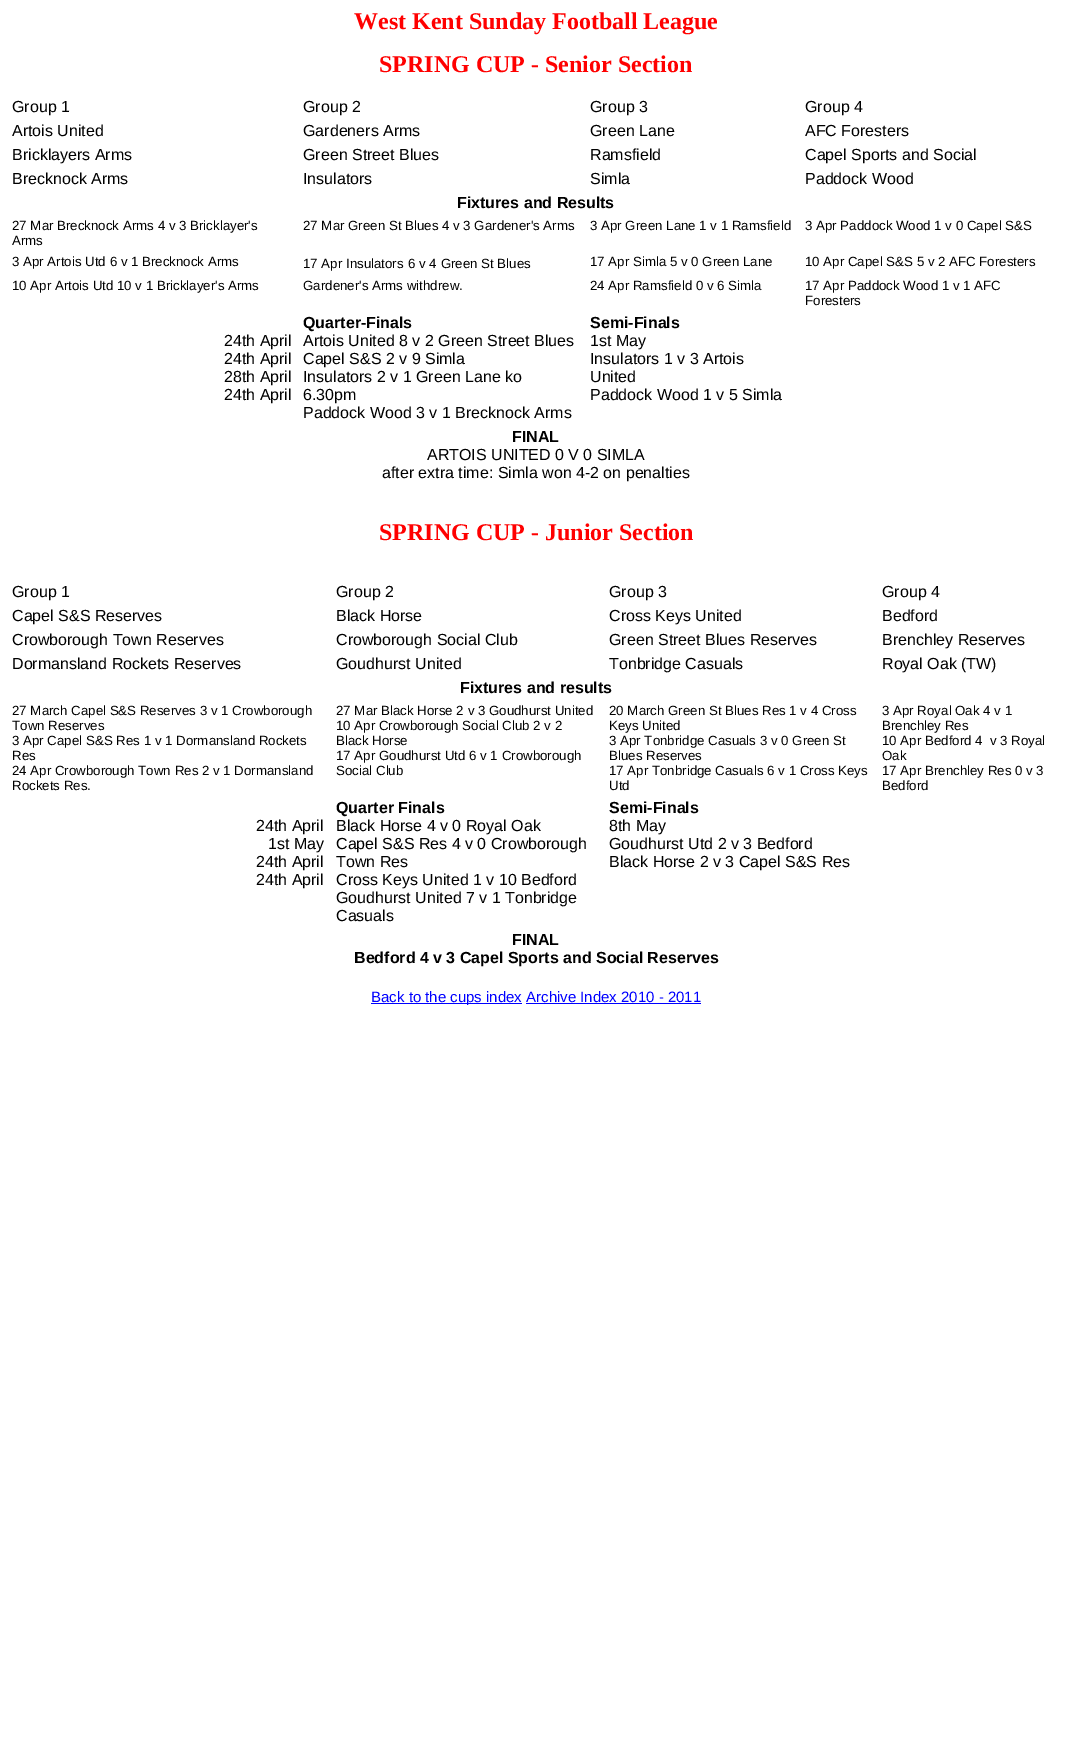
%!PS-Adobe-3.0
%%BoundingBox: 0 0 1072 1761
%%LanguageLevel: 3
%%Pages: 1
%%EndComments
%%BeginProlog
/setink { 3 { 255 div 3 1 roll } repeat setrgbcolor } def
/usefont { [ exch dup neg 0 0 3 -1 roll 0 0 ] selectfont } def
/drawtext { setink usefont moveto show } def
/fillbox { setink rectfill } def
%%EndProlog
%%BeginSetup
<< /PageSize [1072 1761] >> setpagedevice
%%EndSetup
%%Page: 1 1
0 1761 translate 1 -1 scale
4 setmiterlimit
0 0 1072 1761 255 255 255 fillbox
(West Kent Sunday Football League) 354 29 /LiberationSerif-Bold 24 255 0 0 drawtext
(SPRING CUP - Senior Section) 379 72 /LiberationSerif-Bold 24 255 0 0 drawtext
(Group 1) 12 112 /LiberationSans-Regular 16 0 0 0 drawtext
(Group 2) 303 112 /LiberationSans-Regular 16 0 0 0 drawtext
(Group 3) 590 112 /LiberationSans-Regular 16 0 0 0 drawtext
(Group 4) 805 112 /LiberationSans-Regular 16 0 0 0 drawtext
(Artois United) 12 136 /LiberationSans-Regular 16 0 0 0 drawtext
(Gardeners Arms) 303 136 /LiberationSans-Regular 16 0 0 0 drawtext
(Green Lane) 590 136 /LiberationSans-Regular 16 0 0 0 drawtext
(AFC Foresters) 805 136 /LiberationSans-Regular 16 0 0 0 drawtext
(Bricklayers Arms) 12 160 /LiberationSans-Regular 16 0 0 0 drawtext
(Green Street Blues) 303 160 /LiberationSans-Regular 16 0 0 0 drawtext
(Ramsfield) 590 160 /LiberationSans-Regular 16 0 0 0 drawtext
(Capel Sports and Social) 805 160 /LiberationSans-Regular 16 0 0 0 drawtext
(Brecknock Arms) 12 184 /LiberationSans-Regular 16 0 0 0 drawtext
(Insulators) 303 184 /LiberationSans-Regular 16 0 0 0 drawtext
(Simla) 590 184 /LiberationSans-Regular 16 0 0 0 drawtext
(Paddock Wood) 805 184 /LiberationSans-Regular 16 0 0 0 drawtext
(Fixtures and Results) 457 208 /LiberationSans-Bold 16 0 0 0 drawtext
(27 Mar Brecknock Arms 4 v 3 Bricklayer's) 12 230 /LiberationSans-Regular 13.3 0 0 0 drawtext
(Arms) 12 245 /LiberationSans-Regular 13.3 0 0 0 drawtext
(27 Mar Green St Blues 4 v 3 Gardener's Arms) 303 230 /LiberationSans-Regular 13.3 0 0 0 drawtext
(3 Apr Green Lane 1 v 1 Ramsfield) 590 230 /LiberationSans-Regular 13.3 0 0 0 drawtext
(3 Apr Paddock Wood 1 v 0 Capel S&S) 805 230 /LiberationSans-Regular 13.3 0 0 0 drawtext
(3 Apr Artois Utd 6 v 1 Brecknock Arms) 12 266 /LiberationSans-Regular 13.3 0 0 0 drawtext
(17 Apr Insulators) 303 268 /LiberationSans-Regular 13.3 0 0 0 drawtext
(6 v 4 Green St Blues) 408 268 /LiberationSans-Regular 13.3 0 0 0 drawtext
(17 Apr Simla 5 v 0 Green Lane) 590 266 /LiberationSans-Regular 13.3 0 0 0 drawtext
(10 Apr Capel S&S 5 v 2 AFC Foresters) 805 266 /LiberationSans-Regular 13.3 0 0 0 drawtext
(10 Apr Artois Utd 10 v 1 Bricklayer's Arms) 12 290 /LiberationSans-Regular 13.3 0 0 0 drawtext
(Gardener's Arms withdrew.) 303 290 /LiberationSans-Regular 13.3 0 0 0 drawtext
(24 Apr Ramsfield 0 v 6 Simla) 590 290 /LiberationSans-Regular 13.3 0 0 0 drawtext
(17 Apr Paddock Wood 1 v 1 AFC) 805 290 /LiberationSans-Regular 13.3 0 0 0 drawtext
(Foresters) 805 305 /LiberationSans-Regular 13.3 0 0 0 drawtext
(24th April) 224 346 /LiberationSans-Regular 16 0 0 0 drawtext
(24th April) 224 364 /LiberationSans-Regular 16 0 0 0 drawtext
(28th April) 224 382 /LiberationSans-Regular 16 0 0 0 drawtext
(24th April) 224 400 /LiberationSans-Regular 16 0 0 0 drawtext
(Quarter-Finals) 303 328 /LiberationSans-Bold 16 0 0 0 drawtext
(Artois United 8 v 2 Green Street Blues) 303 346 /LiberationSans-Regular 16 0 0 0 drawtext
(Capel S&S 2 v 9 Simla) 303 364 /LiberationSans-Regular 16 0 0 0 drawtext
(Insulators 2 v 1 Green Lane ko) 303 382 /LiberationSans-Regular 16 0 0 0 drawtext
(6.30pm) 303 400 /LiberationSans-Regular 16 0 0 0 drawtext
(Paddock Wood 3 v 1 Brecknock Arms) 303 418 /LiberationSans-Regular 16 0 0 0 drawtext
(Semi-Finals) 590 328 /LiberationSans-Bold 16 0 0 0 drawtext
(1st May) 590 346 /LiberationSans-Regular 16 0 0 0 drawtext
(Insulators 1 v 3 Artois) 590 364 /LiberationSans-Regular 16 0 0 0 drawtext
(United) 590 382 /LiberationSans-Regular 16 0 0 0 drawtext
(Paddock Wood 1 v 5 Simla) 590 400 /LiberationSans-Regular 16 0 0 0 drawtext
(FINAL) 512 442 /LiberationSans-Bold 16 0 0 0 drawtext
(ARTOIS UNITED 0 V 0 SIMLA) 427 460 /LiberationSans-Regular 16 0 0 0 drawtext
(after extra time: Simla won 4-2 on penalties) 382 478 /LiberationSans-Regular 16 0 0 0 drawtext
(SPRING CUP - Junior Section) 379 540 /LiberationSerif-Bold 24 255 0 0 drawtext
(Group 1) 12 597 /LiberationSans-Regular 16 0 0 0 drawtext
(Group 2) 336 597 /LiberationSans-Regular 16 0 0 0 drawtext
(Group 3) 609 597 /LiberationSans-Regular 16 0 0 0 drawtext
(Group 4) 882 597 /LiberationSans-Regular 16 0 0 0 drawtext
(Capel S&S Reserves) 12 621 /LiberationSans-Regular 16 0 0 0 drawtext
(Black Horse) 336 621 /LiberationSans-Regular 16 0 0 0 drawtext
(Cross Keys United) 609 621 /LiberationSans-Regular 16 0 0 0 drawtext
(Bedford) 882 621 /LiberationSans-Regular 16 0 0 0 drawtext
(Crowborough Town Reserves) 12 645 /LiberationSans-Regular 16 0 0 0 drawtext
(Crowborough Social Club) 336 645 /LiberationSans-Regular 16 0 0 0 drawtext
(Green Street Blues Reserves) 609 645 /LiberationSans-Regular 16 0 0 0 drawtext
(Brenchley Reserves) 882 645 /LiberationSans-Regular 16 0 0 0 drawtext
(Dormansland Rockets Reserves) 12 669 /LiberationSans-Regular 16 0 0 0 drawtext
(Goudhurst United) 336 669 /LiberationSans-Regular 16 0 0 0 drawtext
(Tonbridge Casuals) 609 669 /LiberationSans-Regular 16 0 0 0 drawtext
(Royal Oak \(TW\)) 882 669 /LiberationSans-Regular 16 0 0 0 drawtext
(Fixtures and results) 460 693 /LiberationSans-Bold 16 0 0 0 drawtext
(27 March Capel S&S Reserves 3 v 1 Crowborough) 12 715 /LiberationSans-Regular 13.3 0 0 0 drawtext
(Town Reserves) 12 730 /LiberationSans-Regular 13.3 0 0 0 drawtext
(3 Apr Capel S&S Res 1 v 1 Dormansland Rockets) 12 745 /LiberationSans-Regular 13.3 0 0 0 drawtext
(Res) 12 760 /LiberationSans-Regular 13.3 0 0 0 drawtext
(24 Apr Crowborough Town Res 2 v 1 Dormansland) 12 775 /LiberationSans-Regular 13.3 0 0 0 drawtext
(Rockets Res.) 12 790 /LiberationSans-Regular 13.3 0 0 0 drawtext
(27 Mar Black Horse 2 v 3 Goudhurst United) 336 715 /LiberationSans-Regular 13.3 0 0 0 drawtext
(10 Apr Crowborough Social Club 2 v 2) 336 730 /LiberationSans-Regular 13.3 0 0 0 drawtext
(Black Horse) 336 745 /LiberationSans-Regular 13.3 0 0 0 drawtext
(17 Apr Goudhurst Utd 6 v 1 Crowborough) 336 760 /LiberationSans-Regular 13.3 0 0 0 drawtext
(Social Club) 336 775 /LiberationSans-Regular 13.3 0 0 0 drawtext
(20 March Green St Blues Res 1 v 4 Cross) 609 715 /LiberationSans-Regular 13.3 0 0 0 drawtext
(Keys United) 609 730 /LiberationSans-Regular 13.3 0 0 0 drawtext
(3 Apr Tonbridge Casuals 3 v 0 Green St) 609 745 /LiberationSans-Regular 13.3 0 0 0 drawtext
(Blues Reserves) 609 760 /LiberationSans-Regular 13.3 0 0 0 drawtext
(17 Apr Tonbridge Casuals 6 v 1 Cross Keys) 609 775 /LiberationSans-Regular 13.3 0 0 0 drawtext
(Utd) 609 790 /LiberationSans-Regular 13.3 0 0 0 drawtext
(3 Apr Royal Oak 4 v 1) 882 715 /LiberationSans-Regular 13.3 0 0 0 drawtext
(Brenchley Res) 882 730 /LiberationSans-Regular 13.3 0 0 0 drawtext
(10 Apr Bedford 4  v 3 Royal) 882 745 /LiberationSans-Regular 13.3 0 0 0 drawtext
(Oak) 882 760 /LiberationSans-Regular 13.3 0 0 0 drawtext
(17 Apr Brenchley Res 0 v 3) 882 775 /LiberationSans-Regular 13.3 0 0 0 drawtext
(Bedford) 882 790 /LiberationSans-Regular 13.3 0 0 0 drawtext
(24th April) 256 831 /LiberationSans-Regular 16 0 0 0 drawtext
(1st May) 268 849 /LiberationSans-Regular 16 0 0 0 drawtext
(24th April) 256 867 /LiberationSans-Regular 16 0 0 0 drawtext
(24th April) 256 885 /LiberationSans-Regular 16 0 0 0 drawtext
(Quarter Finals) 336 813 /LiberationSans-Bold 16 0 0 0 drawtext
(Black Horse 4 v 0 Royal Oak) 336 831 /LiberationSans-Regular 16 0 0 0 drawtext
(Capel S&S Res 4 v 0 Crowborough) 336 849 /LiberationSans-Regular 16 0 0 0 drawtext
(Town Res) 336 867 /LiberationSans-Regular 16 0 0 0 drawtext
(Cross Keys United 1 v 10 Bedford) 336 885 /LiberationSans-Regular 16 0 0 0 drawtext
(Goudhurst United 7 v 1 Tonbridge) 336 903 /LiberationSans-Regular 16 0 0 0 drawtext
(Casuals) 336 921 /LiberationSans-Regular 16 0 0 0 drawtext
(Semi-Finals) 609 813 /LiberationSans-Bold 16 0 0 0 drawtext
(8th May) 609 831 /LiberationSans-Regular 16 0 0 0 drawtext
(Goudhurst Utd 2 v 3 Bedford) 609 849 /LiberationSans-Regular 16 0 0 0 drawtext
(Black Horse 2 v 3 Capel S&S Res) 609 867 /LiberationSans-Regular 16 0 0 0 drawtext
(FINAL) 512 945 /LiberationSans-Bold 16 0 0 0 drawtext
(Bedford 4 v 3 Capel Sports and Social Reserves) 354 963 /LiberationSans-Bold 16 0 0 0 drawtext
371 1003 151 1 0 0 255 fillbox
(Back to the cups index Archive Index 2010 - 2011) 371 1002 /LiberationSans-Regular 15 0 0 255 drawtext
526 1003 175 1 0 0 255 fillbox
showpage
%%EOF
